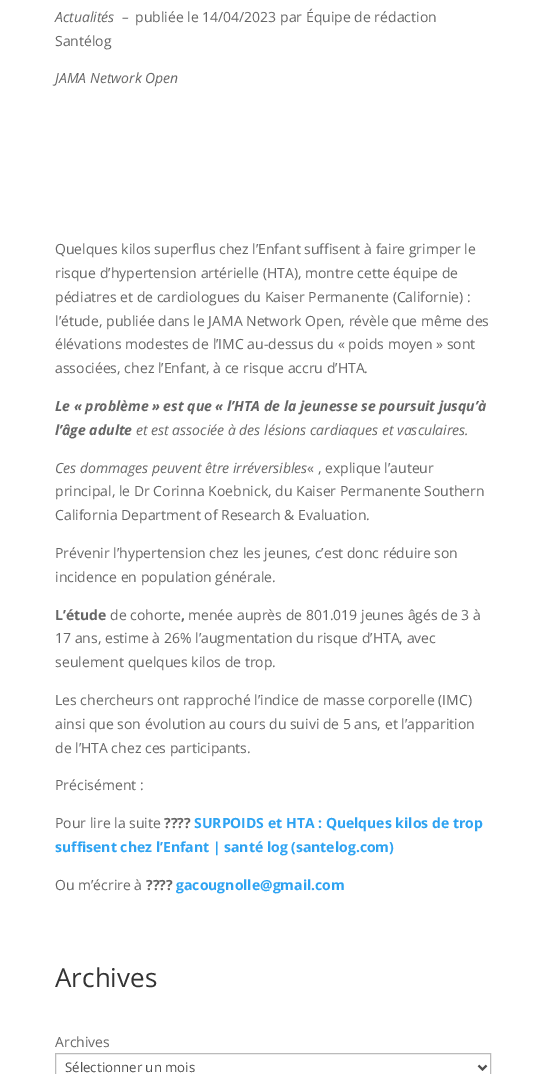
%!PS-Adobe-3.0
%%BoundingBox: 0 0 546 1074
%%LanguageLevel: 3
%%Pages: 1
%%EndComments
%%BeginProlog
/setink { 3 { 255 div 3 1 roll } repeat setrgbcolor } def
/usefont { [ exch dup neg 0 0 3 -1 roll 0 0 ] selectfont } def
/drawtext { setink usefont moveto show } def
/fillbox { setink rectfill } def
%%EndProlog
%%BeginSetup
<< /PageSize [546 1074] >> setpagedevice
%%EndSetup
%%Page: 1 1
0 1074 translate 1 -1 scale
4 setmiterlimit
0 0 546 1074 255 255 255 fillbox
(Actualités  –) 55 22 /OpenSans-Italic 14 102 102 102 drawtext
(publiée le 14/04/2023 par Équipe de rédaction) 135 22 /OpenSans-Regular 14 102 102 102 drawtext
(Santélog) 55 46 /OpenSans-Regular 14 102 102 102 drawtext
(JAMA Network Open) 55 83 /OpenSans-Italic 14 102 102 102 drawtext
(Quelques kilos superflus chez l’Enfant suffisent à faire grimper le) 55 254 /OpenSans-Regular 14 102 102 102 drawtext
(risque d’hypertension artérielle \(HTA\), montre cette équipe de) 55 278 /OpenSans-Regular 14 102 102 102 drawtext
(pédiatres et de cardiologues du Kaiser Permanente \(Californie\) :) 55 302 /OpenSans-Regular 14 102 102 102 drawtext
(l’étude, publiée dans le JAMA Network Open, révèle que même des) 55 326 /OpenSans-Regular 14 102 102 102 drawtext
(élévations modestes de l’IMC au-dessus du « poids moyen » sont) 55 349 /OpenSans-Regular 14 102 102 102 drawtext
(associées, chez l’Enfant, à ce risque accru d’HTA.) 55 373 /OpenSans-Regular 14 102 102 102 drawtext
(Le « problème » est que « l’HTA de la jeunesse se poursuit jusqu’à) 55 411 /OpenSans-BoldItalic 14 102 102 102 drawtext
(l’âge adulte) 55 435 /OpenSans-BoldItalic 14 102 102 102 drawtext
(et est associée à des lésions cardiaques et vasculaires.) 136 435 /OpenSans-Italic 14 102 102 102 drawtext
(Ces dommages peuvent être irréversibles) 55 473 /OpenSans-Italic 14 102 102 102 drawtext
(« , explique l’auteur) 307 473 /OpenSans-Regular 14 102 102 102 drawtext
(principal, le Dr Corinna Koebnick, du Kaiser Permanente Southern) 55 496 /OpenSans-Regular 14 102 102 102 drawtext
(California Department of Research & Evaluation.) 55 520 /OpenSans-Regular 14 102 102 102 drawtext
(Prévenir l’hypertension chez les jeunes, c’est donc réduire son) 55 558 /OpenSans-Regular 14 102 102 102 drawtext
(incidence en population générale.) 55 582 /OpenSans-Regular 14 102 102 102 drawtext
(L’étude) 55 620 /OpenSans-Bold 14 102 102 102 drawtext
(de cohorte) 110 620 /OpenSans-Regular 14 102 102 102 drawtext
(,) 181 620 /OpenSans-Bold 14 102 102 102 drawtext
(menée auprès de 801.019 jeunes âgés de 3 à) 188 620 /OpenSans-Regular 14 102 102 102 drawtext
(17 ans, estime à 26% l’augmentation du risque d’HTA, avec) 55 643 /OpenSans-Regular 14 102 102 102 drawtext
(seulement quelques kilos de trop.) 55 667 /OpenSans-Regular 14 102 102 102 drawtext
(Les chercheurs ont rapproché l’indice de masse corporelle \(IMC\)) 55 705 /OpenSans-Regular 14 102 102 102 drawtext
(ainsi que son évolution au cours du suivi de 5 ans, et l’apparition) 55 729 /OpenSans-Regular 14 102 102 102 drawtext
(de l’HTA chez ces participants.) 55 753 /OpenSans-Regular 14 102 102 102 drawtext
(Précisément :) 55 790 /OpenSans-Regular 14 102 102 102 drawtext
(Pour lire la suite) 55 828 /OpenSans-Regular 14 102 102 102 drawtext
(????) 164 828 /OpenSans-Bold 14 102 102 102 drawtext
(SURPOIDS et HTA : Quelques kilos de trop) 194 828 /OpenSans-Bold 14 46 163 242 drawtext
(suffisent chez l’Enfant | santé log \(santelog.com\)) 55 852 /OpenSans-Bold 14 46 163 242 drawtext
(Ou m’écrire à) 55 890 /OpenSans-Regular 14 102 102 102 drawtext
(????) 146 890 /OpenSans-Bold 14 102 102 102 drawtext
(gacougnolle@gmail.com) 176 890 /OpenSans-Bold 14 46 163 242 drawtext
(Archives) 55 987 /OpenSans-Regular 26 51 51 51 drawtext
(Archives) 55 1047 /OpenSans-Regular 14 102 102 102 drawtext
187 187 187 setink
55.5 1053.5 435 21 rectstroke
78 78 78 setink
2 setlinewidth
478.5 1065.5 moveto 482.5 1069.5 lineto 486.5 1065.5 lineto stroke
(Sélectionner un mois) 65 1072 /OpenSans-Regular 13.25 78 78 78 drawtext
showpage
%%EOF
